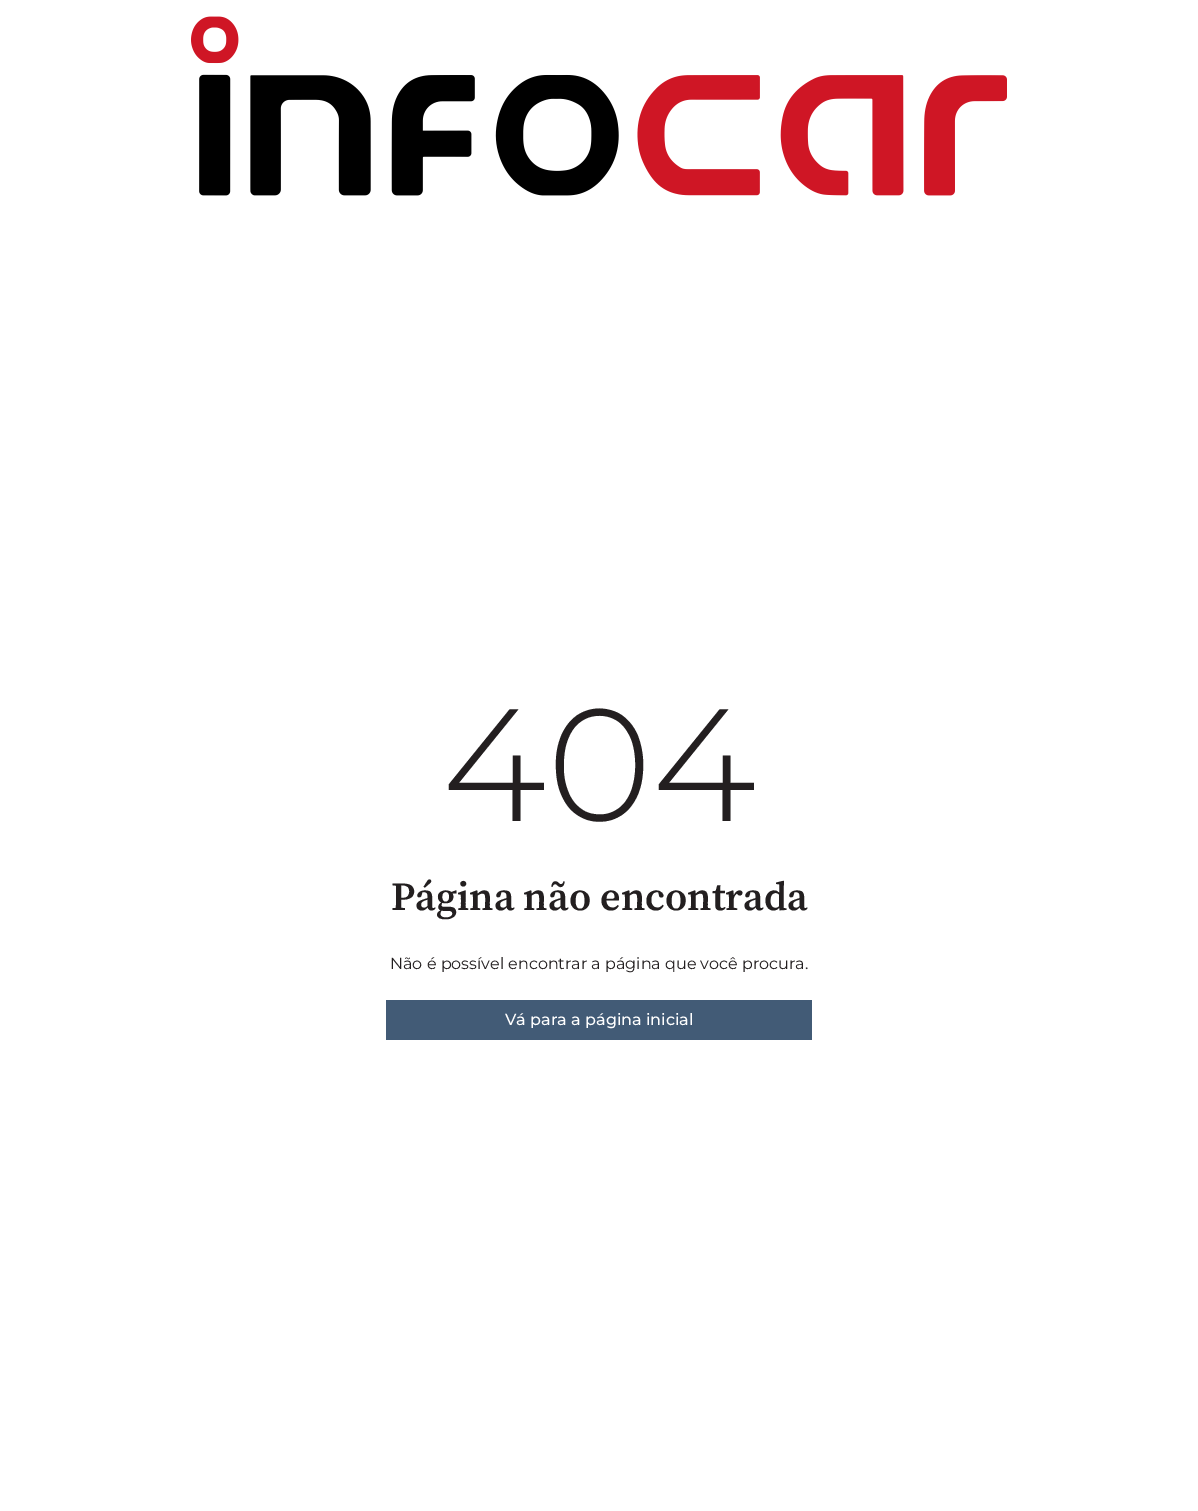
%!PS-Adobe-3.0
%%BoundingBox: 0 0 1198 1511
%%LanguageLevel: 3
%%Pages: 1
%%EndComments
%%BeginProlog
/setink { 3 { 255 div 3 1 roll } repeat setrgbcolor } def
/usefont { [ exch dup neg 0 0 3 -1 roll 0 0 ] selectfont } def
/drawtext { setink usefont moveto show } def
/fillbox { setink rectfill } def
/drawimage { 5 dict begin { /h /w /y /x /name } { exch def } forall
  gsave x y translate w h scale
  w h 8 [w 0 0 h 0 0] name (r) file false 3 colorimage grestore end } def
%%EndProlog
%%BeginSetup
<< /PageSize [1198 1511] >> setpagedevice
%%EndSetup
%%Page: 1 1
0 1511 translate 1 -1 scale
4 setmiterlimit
0 0 1198 1511 255 255 255 fillbox
(assets/img1.rgb) 191 16 816 180 drawimage
(404) 442 821 /Montserrat-Light 160 35 31 32 drawtext
(Página não encontrada) 391 910 /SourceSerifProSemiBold-SemiBold 40 35 31 32 drawtext
(Não é possível encontrar a página que você procura.) 390 969 /Montserrat-Regular 16 35 31 32 drawtext
386 1000 426 40 66 91 118 fillbox
(Vá para a página inicial) 505 1025 /Montserrat-Medium 16 255 255 255 drawtext
showpage
%%EOF
